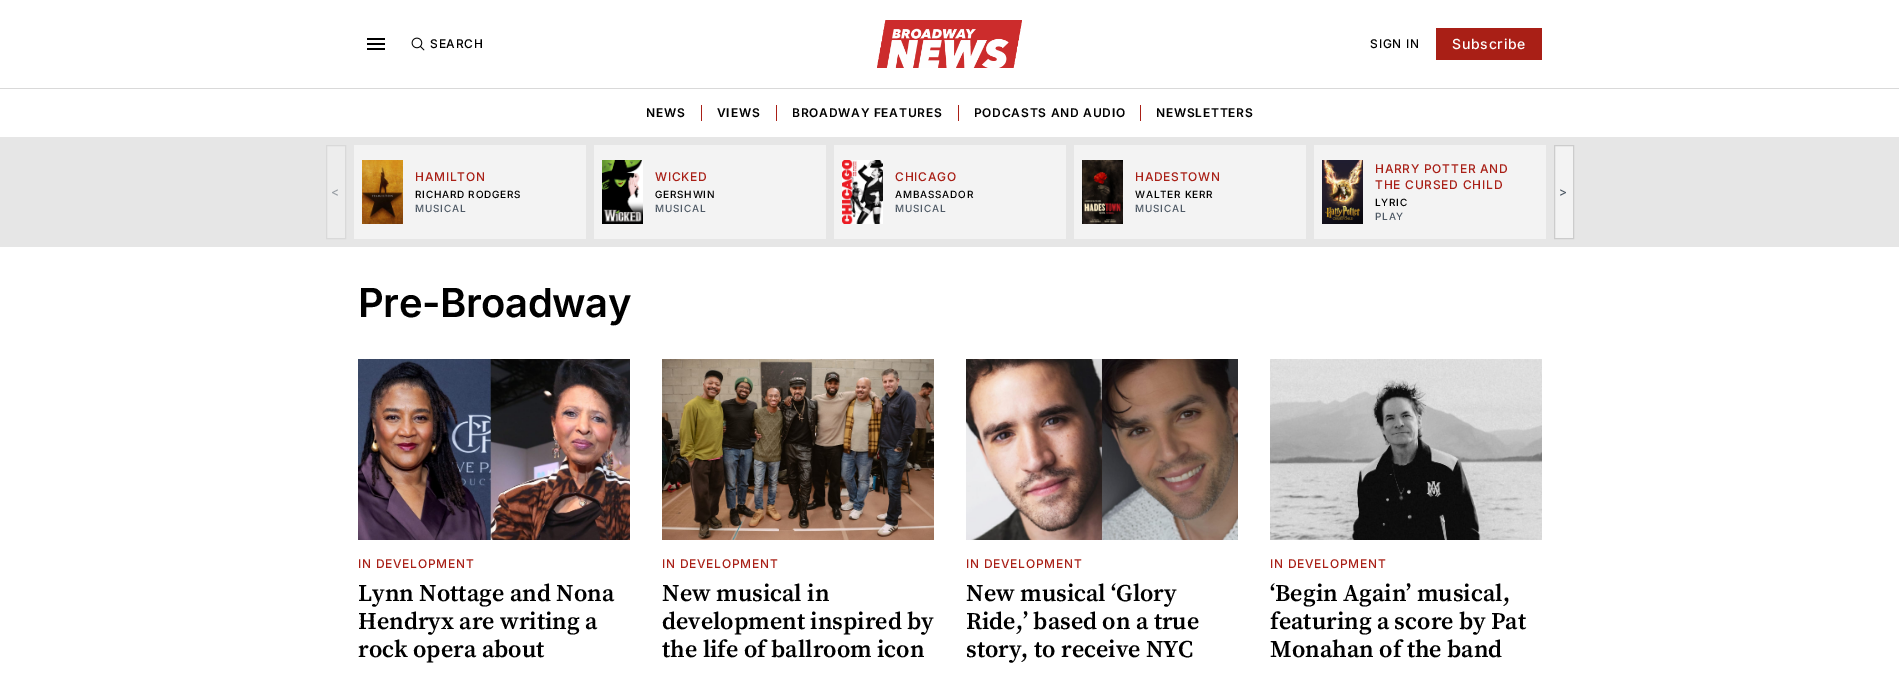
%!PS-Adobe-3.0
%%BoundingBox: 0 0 1899 676
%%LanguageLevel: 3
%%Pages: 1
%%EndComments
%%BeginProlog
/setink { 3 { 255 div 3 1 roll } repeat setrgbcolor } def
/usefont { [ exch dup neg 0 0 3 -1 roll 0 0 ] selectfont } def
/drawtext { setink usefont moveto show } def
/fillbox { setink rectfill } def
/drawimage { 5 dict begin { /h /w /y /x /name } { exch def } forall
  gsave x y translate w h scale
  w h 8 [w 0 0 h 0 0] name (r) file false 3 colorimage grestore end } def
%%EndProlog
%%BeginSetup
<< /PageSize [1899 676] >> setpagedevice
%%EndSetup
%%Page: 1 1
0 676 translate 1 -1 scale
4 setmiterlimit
0 0 1899 676 255 255 255 fillbox
0 88 1899 1 217 217 217 fillbox
(assets/img1.rgb) 367 38 18 12 drawimage
(assets/img2.rgb) 411 37 14 14 drawimage
/Inter-Medium 12 usefont
0 0 0 setink
430 48 moveto 0.75 0 (SEARCH) ashow
(assets/img3.rgb) 877 20 145 48 drawimage
1370 48 moveto 0.75 0 (SIGN IN) ashow
1436 28 106 32 169 31 22 fillbox
/Inter-Medium 14 usefont
255 255 255 setink
1452 49 moveto 0.75 0 (Subscribe) ashow
/Inter-SemiBold 12 usefont
0 0 0 setink
646 117 moveto 0.75 0 (NEWS) ashow
701 105 1 16 169 31 22 fillbox
0 0 0 setink
717 117 moveto 0.75 0 (VIEWS) ashow
776 105 1 16 169 31 22 fillbox
0 0 0 setink
792 117 moveto 0.75 0 (BROADWAY FEATURES) ashow
958 105 1 16 169 31 22 fillbox
0 0 0 setink
974 117 moveto 0.75 0 (PODCASTS AND AUDIO) ashow
1140 105 1 16 169 31 22 fillbox
0 0 0 setink
1156 117 moveto 0.75 0 (NEWSLETTERS) ashow
0 137 1899 110 230 230 230 fillbox
237 237 237 setink
326.5 145.5 moveto 345.5 145.5 lineto 345.5 238.5 lineto 326.5 238.5 lineto closepath gsave fill grestore
217 217 217 setink
stroke
/Inter-Medium 12 usefont
154 160 166 setink
331 196 moveto 0.75 0 (<) ashow
354 145 232 94 243 243 243 fillbox
(assets/img4.rgb) 362 160 41 64 drawimage
169 31 22 setink
415 181 moveto 0.75 0 (HAMILTON) ashow
/Inter-Medium 10 usefont
0 0 0 setink
415 198 moveto 0.75 0 (RICHARD RODGERS) ashow
78 89 101 setink
415 212 moveto 0.75 0 (MUSICAL) ashow
594 145 232 94 243 243 243 fillbox
(assets/img5.rgb) 602 160 41 64 drawimage
/Inter-Medium 12 usefont
169 31 22 setink
655 181 moveto 0.75 0 (WICKED) ashow
/Inter-Medium 10 usefont
0 0 0 setink
655 198 moveto 0.75 0 (GERSHWIN) ashow
78 89 101 setink
655 212 moveto 0.75 0 (MUSICAL) ashow
834 145 232 94 243 243 243 fillbox
(assets/img6.rgb) 842 160 41 64 drawimage
/Inter-Medium 12 usefont
169 31 22 setink
895 181 moveto 0.75 0 (CHICAGO) ashow
/Inter-Medium 10 usefont
0 0 0 setink
895 198 moveto 0.75 0 (AMBASSADOR) ashow
78 89 101 setink
895 212 moveto 0.75 0 (MUSICAL) ashow
1074 145 232 94 243 243 243 fillbox
(assets/img7.rgb) 1082 160 41 64 drawimage
/Inter-Medium 12 usefont
169 31 22 setink
1135 181 moveto 0.75 0 (HADESTOWN) ashow
/Inter-Medium 10 usefont
0 0 0 setink
1135 198 moveto 0.75 0 (WALTER KERR) ashow
78 89 101 setink
1135 212 moveto 0.75 0 (MUSICAL) ashow
1314 145 232 94 243 243 243 fillbox
(assets/img8.rgb) 1322 160 41 64 drawimage
/Inter-Medium 12 usefont
169 31 22 setink
1375 173 moveto 0.75 0 (HARRY POTTER AND) ashow
1375 189 moveto 0.75 0 (THE CURSED CHILD) ashow
/Inter-Medium 10 usefont
0 0 0 setink
1375 206 moveto 0.75 0 (LYRIC) ashow
78 89 101 setink
1375 220 moveto 0.75 0 (PLAY) ashow
243 243 243 setink
1554.5 145.5 moveto 1573.5 145.5 lineto 1573.5 238.5 lineto 1554.5 238.5 lineto closepath gsave fill grestore
204 204 204 setink
stroke
/Inter-Medium 12 usefont
78 89 101 setink
1559 196 moveto 0.75 0 (>) ashow
/Inter-SemiBold 40 usefont
0 0 0 setink
358 317 moveto -0.5 0 (Pre-Broadway) ashow
(assets/img9.rgb) 358 359 272 181 drawimage
/Inter-Medium 12 usefont
169 31 22 setink
358 568 moveto 0.75 0 (IN DEVELOPMENT) ashow
(Lynn Nottage and Nona) 358 601 /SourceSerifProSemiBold-SemiBold 24 0 0 0 drawtext
(Hendryx are writing a) 358 629 /SourceSerifProSemiBold-SemiBold 24 0 0 0 drawtext
(rock opera about) 358 657 /SourceSerifProSemiBold-SemiBold 24 0 0 0 drawtext
(assets/img10.rgb) 662 359 272 181 drawimage
/Inter-Medium 12 usefont
169 31 22 setink
662 568 moveto 0.75 0 (IN DEVELOPMENT) ashow
(New musical in) 662 601 /SourceSerifProSemiBold-SemiBold 24 0 0 0 drawtext
(development inspired by) 662 629 /SourceSerifProSemiBold-SemiBold 24 0 0 0 drawtext
(the life of ballroom icon) 662 657 /SourceSerifProSemiBold-SemiBold 24 0 0 0 drawtext
(assets/img11.rgb) 966 359 272 181 drawimage
/Inter-Medium 12 usefont
169 31 22 setink
966 568 moveto 0.75 0 (IN DEVELOPMENT) ashow
(New musical ‘Glory) 966 601 /SourceSerifProSemiBold-SemiBold 24 0 0 0 drawtext
(Ride,’ based on a true) 966 629 /SourceSerifProSemiBold-SemiBold 24 0 0 0 drawtext
(story, to receive NYC) 966 657 /SourceSerifProSemiBold-SemiBold 24 0 0 0 drawtext
(assets/img12.rgb) 1270 359 272 181 drawimage
/Inter-Medium 12 usefont
169 31 22 setink
1270 568 moveto 0.75 0 (IN DEVELOPMENT) ashow
(‘Begin Again’ musical,) 1270 601 /SourceSerifProSemiBold-SemiBold 24 0 0 0 drawtext
(featuring a score by Pat) 1270 629 /SourceSerifProSemiBold-SemiBold 24 0 0 0 drawtext
(Monahan of the band) 1270 657 /SourceSerifProSemiBold-SemiBold 24 0 0 0 drawtext
showpage
%%EOF
